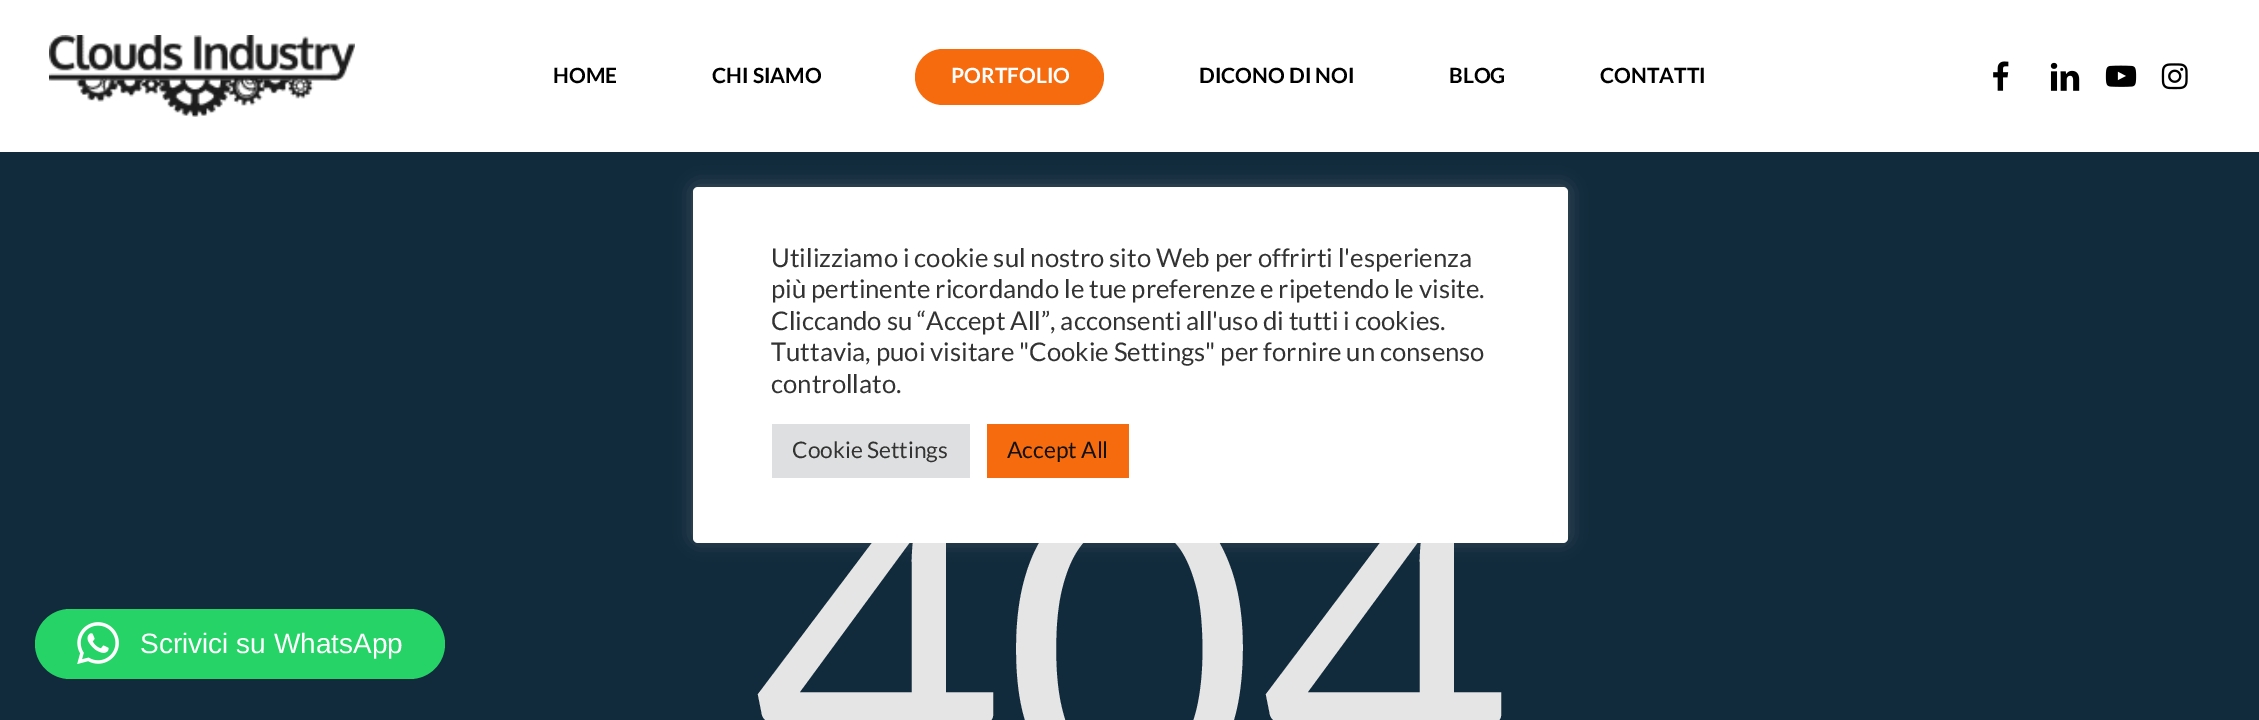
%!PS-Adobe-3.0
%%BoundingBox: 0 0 2259 720
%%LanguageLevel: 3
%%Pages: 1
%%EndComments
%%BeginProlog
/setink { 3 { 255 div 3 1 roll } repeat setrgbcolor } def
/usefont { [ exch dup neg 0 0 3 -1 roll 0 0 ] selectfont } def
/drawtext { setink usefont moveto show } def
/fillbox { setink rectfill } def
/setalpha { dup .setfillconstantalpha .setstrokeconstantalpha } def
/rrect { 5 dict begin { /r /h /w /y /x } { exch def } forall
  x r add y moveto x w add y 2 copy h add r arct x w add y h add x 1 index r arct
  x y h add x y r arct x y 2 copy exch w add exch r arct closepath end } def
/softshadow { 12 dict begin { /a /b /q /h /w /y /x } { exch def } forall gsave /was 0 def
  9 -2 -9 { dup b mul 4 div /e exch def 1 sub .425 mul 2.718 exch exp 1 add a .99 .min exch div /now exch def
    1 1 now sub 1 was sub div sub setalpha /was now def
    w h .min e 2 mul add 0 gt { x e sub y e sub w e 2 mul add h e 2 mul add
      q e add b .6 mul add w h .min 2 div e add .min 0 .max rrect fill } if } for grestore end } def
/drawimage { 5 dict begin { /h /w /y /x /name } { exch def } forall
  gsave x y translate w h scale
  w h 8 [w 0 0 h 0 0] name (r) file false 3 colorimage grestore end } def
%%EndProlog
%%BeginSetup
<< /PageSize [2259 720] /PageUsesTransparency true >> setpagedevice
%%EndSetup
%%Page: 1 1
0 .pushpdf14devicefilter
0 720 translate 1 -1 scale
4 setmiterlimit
0 0 2259 720 255 255 255 fillbox
(assets/img1.rgb) 49 35 306 82 drawimage
(HOME) 553 83 /Lato-Bold 21 0 0 0 drawtext
(CHI SIAMO) 712 83 /Lato-Bold 21 0 0 0 drawtext
246 107 14 setink
915 49 189 56 28 rrect fill
(PORTFOLIO) 951 83 /Lato-Bold 21 255 255 255 drawtext
(DICONO DI NOI) 1199 83 /Lato-Bold 21 0 0 0 drawtext
(BLOG) 1449 83 /Lato-Bold 21 0 0 0 drawtext
(CONTATTI) 1600 83 /Lato-Bold 21 0 0 0 drawtext
(assets/img2.rgb) 1993 61 16 30 drawimage
(assets/img3.rgb) 2050 62 30 29 drawimage
(assets/img4.rgb) 2105 65 32 22 drawimage
(assets/img5.rgb) 2161 63 27 27 drawimage
0 152 2259 568 17 43 60 fillbox
172 171 171 setink
693 186 875 355 5 9 0.3 softshadow
(404) 749 805 /Lato-Regular 438 229 229 229 drawtext
255 255 255 setink
693 187 875 356 5 rrect fill
(Utilizziamo i cookie sul nostro sito Web per offrirti l'esperienza) 771 267 /Lato-Regular 25.7 51 51 51 drawtext
(più pertinente ricordando le tue preferenze e ripetendo le visite.) 771 298 /Lato-Regular 25.7 51 51 51 drawtext
(Cliccando su “Accept All”, acconsenti all'uso di tutti i cookies.) 771 330 /Lato-Regular 25.7 51 51 51 drawtext
(Tuttavia, puoi visitare "Cookie Settings" per fornire un consenso) 771 361 /Lato-Regular 25.7 51 51 51 drawtext
(controllato.) 771 393 /Lato-Regular 25.7 51 51 51 drawtext
772 424 198 54 222 223 224 fillbox
(Cookie Settings) 792 458 /Lato-Regular 22.75 51 51 51 drawtext
987 424 142 54 246 107 14 fillbox
(Accept All) 1007 458 /Lato-Regular 22.75 17 17 17 drawtext
37 211 102 setink
35 609 410 70 35 rrect fill
(assets/img6.rgb) 77 622 42 43 drawimage
(Scrivici su WhatsApp) 140 653 /LiberationSans-Regular 28 255 255 255 drawtext
.poppdf14devicefilter showpage
%%EOF
